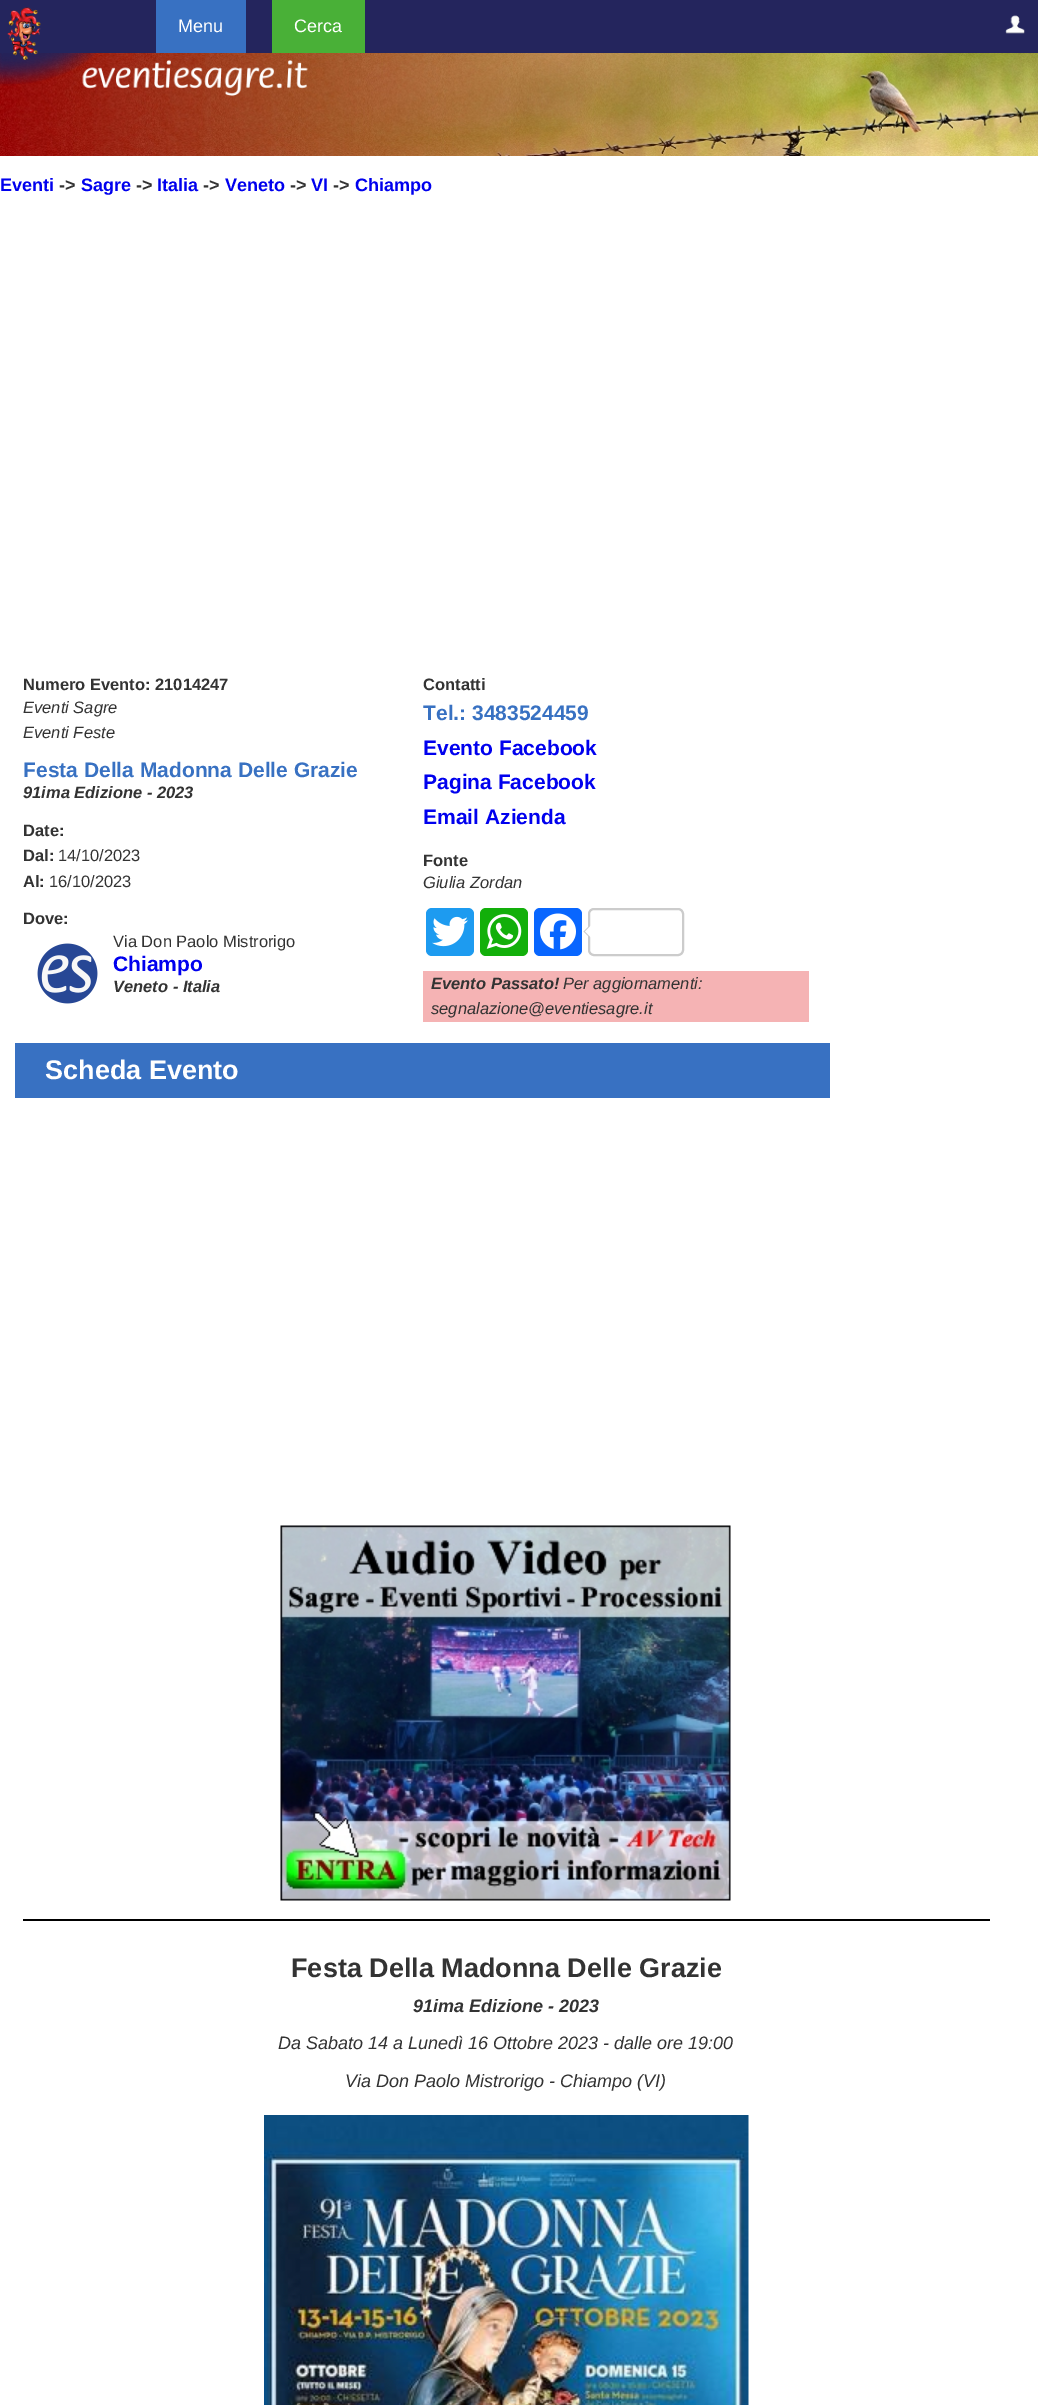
%!PS-Adobe-3.0
%%BoundingBox: 0 0 1038 2405
%%LanguageLevel: 3
%%Pages: 1
%%EndComments
%%BeginProlog
/setink { 3 { 255 div 3 1 roll } repeat setrgbcolor } def
/usefont { [ exch dup neg 0 0 3 -1 roll 0 0 ] selectfont } def
/drawtext { setink usefont moveto show } def
/fillbox { setink rectfill } def
/rrect { 5 dict begin { /r /h /w /y /x } { exch def } forall
  x r add y moveto x w add y 2 copy h add r arct x w add y h add x 1 index r arct
  x y h add x y r arct x y 2 copy exch w add exch r arct closepath end } def
/drawimage { 5 dict begin { /h /w /y /x /name } { exch def } forall
  gsave x y translate w h scale
  w h 8 [w 0 0 h 0 0] name (r) file false 3 colorimage grestore end } def
%%EndProlog
%%BeginSetup
<< /PageSize [1038 2405] >> setpagedevice
%%EndSetup
%%Page: 1 1
0 2405 translate 1 -1 scale
4 setmiterlimit
0 0 1038 2405 255 255 255 fillbox
0 0 1038 53 36 37 93 fillbox
(assets/img4.rgb) 0 53 1038 103 drawimage
(assets/img5.rgb) 82 60 226 36 drawimage
(assets/img3.rgb) 0 53 97 33 drawimage
(assets/img1.rgb) 7 7 34 53 drawimage
156 0 90 53 56 113 194 fillbox
(Menu) 178 32 /LiberationSans-Regular 18 255 255 255 drawtext
272 0 93 53 73 176 55 fillbox
(Cerca) 294 32 /LiberationSans-Regular 18 255 255 255 drawtext
(assets/img2.rgb) 1005 15 20 19 drawimage
(Eventi) 0 191 /LiberationSans-Bold 18 0 0 238 drawtext
(->) 59 191 /LiberationSans-Bold 18 51 51 51 drawtext
(Sagre) 81 191 /LiberationSans-Bold 18 0 0 238 drawtext
(->) 136 191 /LiberationSans-Bold 18 51 51 51 drawtext
(Italia) 157 191 /LiberationSans-Bold 18 0 0 238 drawtext
(->) 203 191 /LiberationSans-Bold 18 51 51 51 drawtext
(Veneto) 225 191 /LiberationSans-Bold 18 0 0 238 drawtext
(->) 290 191 /LiberationSans-Bold 18 51 51 51 drawtext
(VI) 311 191 /LiberationSans-Bold 18 0 0 238 drawtext
(->) 333 191 /LiberationSans-Bold 18 51 51 51 drawtext
(Chiampo) 355 191 /LiberationSans-Bold 18 0 0 238 drawtext
(Numero Evento: 21014247) 23 690 /LiberationSans-Bold 16.5 51 51 51 drawtext
(Eventi Sagre) 23 713 /LiberationSans-Italic 16.5 51 51 51 drawtext
(Eventi Feste) 23 738 /LiberationSans-Italic 16.5 51 51 51 drawtext
(Festa Della Madonna Delle Grazie) 23 777 /LiberationSans-Bold 21 56 113 194 drawtext
(91ima Edizione - 2023) 23 798 /LiberationSans-BoldItalic 16.5 51 51 51 drawtext
(Date:) 23 836 /LiberationSans-Bold 16.5 51 51 51 drawtext
(Dal:) 23 861 /LiberationSans-Bold 16.5 51 51 51 drawtext
(14/10/2023) 58 861 /LiberationSans-Regular 16.5 51 51 51 drawtext
(Al:) 23 887 /LiberationSans-Bold 16.5 51 51 51 drawtext
(16/10/2023) 49 887 /LiberationSans-Regular 16.5 51 51 51 drawtext
(Dove:) 23 924 /LiberationSans-Bold 16.5 51 51 51 drawtext
(assets/img6.rgb) 37 943 61 61 drawimage
(Via Don Paolo Mistrorigo) 113 947 /LiberationSans-Regular 16.5 51 51 51 drawtext
(Chiampo) 113 971 /LiberationSans-Bold 21 0 0 238 drawtext
(Veneto - Italia) 113 992 /LiberationSans-BoldItalic 16.5 51 51 51 drawtext
(Contatti) 423 690 /LiberationSans-Bold 16.5 51 51 51 drawtext
(Tel.: 3483524459) 423 720 /LiberationSans-Bold 21 56 113 194 drawtext
(Evento Facebook) 423 755 /LiberationSans-Bold 21 0 0 238 drawtext
(Pagina Facebook) 423 789 /LiberationSans-Bold 21 0 0 238 drawtext
(Email Azienda) 423 824 /LiberationSans-Bold 21 0 0 238 drawtext
(Fonte) 423 866 /LiberationSans-Bold 16.5 51 51 51 drawtext
(Giulia Zordan) 423 888 /LiberationSans-Italic 16.5 51 51 51 drawtext
29 155 240 setink
426 908 48 48 6 rrect fill
(assets/img7.rgb) 432 916 36 31 drawimage
18 175 10 setink
480 908 48 48 6 rrect fill
(assets/img8.rgb) 486 914 36 35 drawimage
8 102 255 setink
534 908 48 48 6 rrect fill
(assets/img9.rgb) 540 913 36 37 drawimage
204 204 204 setink
2 setlinewidth
589 909 94 46 5 rrect stroke
589.5 925.5 moveto 589.5 937.5 lineto 583.5 931.5 lineto closepath fill
255 255 255 setink
591 925.5 moveto 591 937.5 lineto 585 931.5 lineto closepath fill
423 971 386 51 245 179 180 fillbox
(Evento Passato!) 431 989 /LiberationSans-BoldItalic 16.5 51 51 51 drawtext
(Per aggiornamenti:) 563 989 /LiberationSans-Italic 16.5 51 51 51 drawtext
(segnalazione@eventiesagre.it) 431 1014 /LiberationSans-Italic 16.5 51 51 51 drawtext
15 1043 815 55 56 113 194 fillbox
(Scheda Evento) 45 1079 /LiberationSans-Bold 27 255 255 255 drawtext
(assets/img10.rgb) 280 1525 451 376 drawimage
23 1919 967 2 0 0 0 fillbox
(Festa Della Madonna Delle Grazie) 291 1977 /LiberationSans-Bold 27 51 51 51 drawtext
(91ima Edizione - 2023) 413 2012 /LiberationSans-BoldItalic 18 51 51 51 drawtext
(Da Sabato 14 a Lunedì 16 Ottobre 2023 - dalle ore 19:00) 278 2049 /LiberationSans-Italic 18 51 51 51 drawtext
(Via Don Paolo Mistrorigo - Chiampo \(VI\)) 345 2087 /LiberationSans-Italic 18 51 51 51 drawtext
(assets/img11.rgb) 264 2115 485 290 drawimage
showpage
%%EOF
